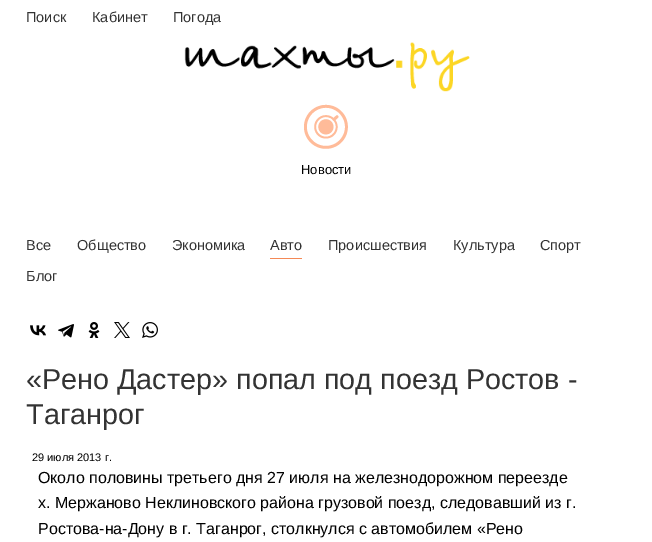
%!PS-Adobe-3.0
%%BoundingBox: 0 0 652 542
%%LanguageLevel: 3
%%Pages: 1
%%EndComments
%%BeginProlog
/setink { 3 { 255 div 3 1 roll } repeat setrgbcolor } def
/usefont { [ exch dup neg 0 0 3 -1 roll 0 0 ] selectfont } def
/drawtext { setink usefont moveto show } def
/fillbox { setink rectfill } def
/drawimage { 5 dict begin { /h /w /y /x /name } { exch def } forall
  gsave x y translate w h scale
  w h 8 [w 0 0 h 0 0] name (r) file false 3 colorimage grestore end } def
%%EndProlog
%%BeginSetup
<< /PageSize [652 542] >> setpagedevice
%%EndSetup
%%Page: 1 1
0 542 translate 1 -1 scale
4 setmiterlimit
0 0 652 542 255 255 255 fillbox
(Поиск) 26 22 /LiberationSans-Regular 14.5 51 51 51 drawtext
(Кабинет) 92 22 /LiberationSans-Regular 14.5 51 51 51 drawtext
(Погода) 173 22 /LiberationSans-Regular 14.5 51 51 51 drawtext
(assets/img1.rgb) 184 42 286 50 drawimage
(assets/img2.rgb) 304 104 44 45 drawimage
(Новости) 301 174 /LiberationSans-Regular 13 0 0 0 drawtext
(Все) 26 250 /LiberationSans-Regular 14.5 51 51 51 drawtext
(Общество) 77 250 /LiberationSans-Regular 14.5 51 51 51 drawtext
(Экономика) 172 250 /LiberationSans-Regular 14.5 51 51 51 drawtext
270 258 32 1 244 137 86 fillbox
(Авто) 270 250 /LiberationSans-Regular 14.5 51 51 51 drawtext
(Происшествия) 328 250 /LiberationSans-Regular 14.5 51 51 51 drawtext
(Культура) 453 250 /LiberationSans-Regular 14.5 51 51 51 drawtext
(Спорт) 540 250 /LiberationSans-Regular 14.5 51 51 51 drawtext
(Блог) 26 281 /LiberationSans-Regular 14.5 51 51 51 drawtext
(assets/img3.rgb) 30 325 16 11 drawimage
(assets/img4.rgb) 58 324 16 14 drawimage
(assets/img5.rgb) 88 322 12 16 drawimage
(assets/img6.rgb) 114 322 16 16 drawimage
(assets/img7.rgb) 142 322 16 16 drawimage
(«Рено Дастер» попал под поезд Ростов -) 26 389 /LiberationSans-Regular 28.75 51 51 51 drawtext
(Таганрог) 26 424 /LiberationSans-Regular 28.75 51 51 51 drawtext
(29 июля 2013 г.) 32 461 /LiberationSans-Regular 11 0 0 0 drawtext
(Около половины третьего дня 27 июля на железнодорожном переезде) 38 483 /LiberationSans-Regular 16 0 0 0 drawtext
(х. Мержаново Неклиновского района грузовой поезд, следовавший из г.) 38 508 /LiberationSans-Regular 16 0 0 0 drawtext
(Ростова-на-Дону в г. Таганрог, столкнулся с автомобилем «Рено) 38 534 /LiberationSans-Regular 16 0 0 0 drawtext
showpage
%%EOF
